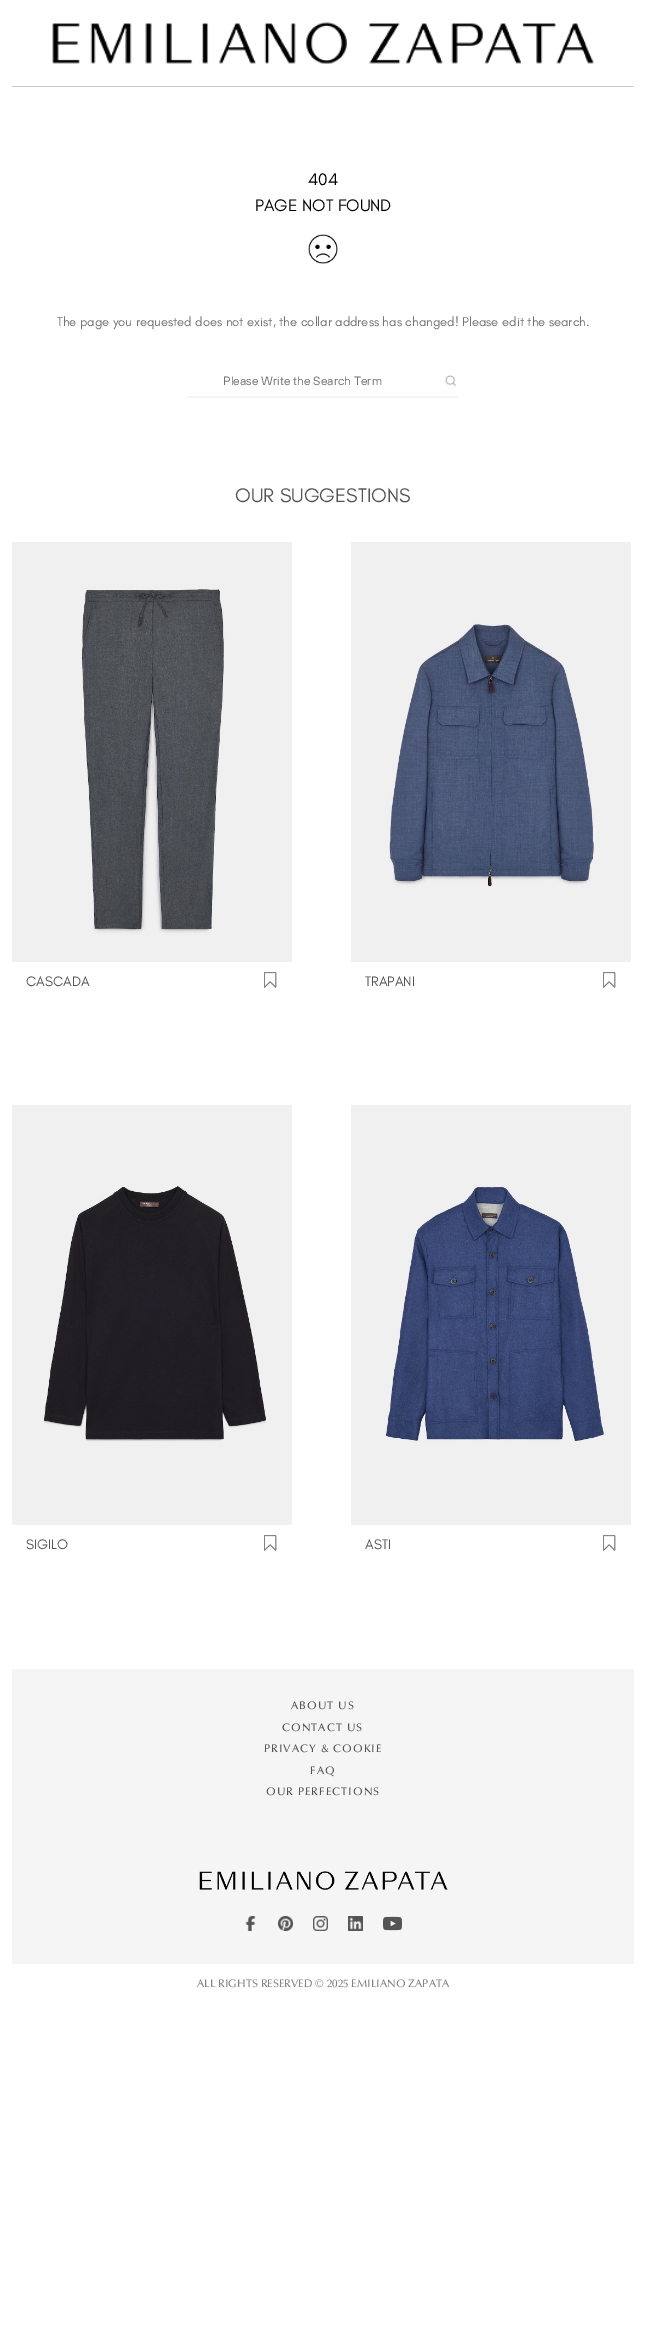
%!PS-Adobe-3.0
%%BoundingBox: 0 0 646 2325
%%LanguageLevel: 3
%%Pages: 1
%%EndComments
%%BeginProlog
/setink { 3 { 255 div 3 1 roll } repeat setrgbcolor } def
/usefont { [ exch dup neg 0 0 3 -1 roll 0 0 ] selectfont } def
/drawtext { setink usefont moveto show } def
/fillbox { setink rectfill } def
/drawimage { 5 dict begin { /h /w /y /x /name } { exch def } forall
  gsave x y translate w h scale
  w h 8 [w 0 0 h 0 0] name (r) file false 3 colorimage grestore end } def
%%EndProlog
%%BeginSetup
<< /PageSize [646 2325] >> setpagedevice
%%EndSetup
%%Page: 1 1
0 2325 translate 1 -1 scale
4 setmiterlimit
0 0 646 2325 255 255 255 fillbox
(assets/img1.rgb) 52 22 542 42 drawimage
12 86 622 1 200 201 202 fillbox
(404) 308 185 /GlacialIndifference-Regular 17 0 0 0 drawtext
(PAGE NOT FOUND) 255 211 /GlacialIndifference-Regular 17 0 0 0 drawtext
(assets/img2.rgb) 308 234 30 30 drawimage
(The page you requested does not exist, the collar address has changed! Please edit the search.) 57 326 /GlacialIndifference-Regular 13 115 115 115 drawtext
188 396 270 2 248 242 243 fillbox
(Please Write the Search Term) 223 385 /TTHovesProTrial-Regular 12 115 115 115 drawtext
(assets/img3.rgb) 445 375 12 12 drawimage
(OUR SUGGESTIONS) 235 502 /GlacialIndifference-Regular 20 84 84 84 drawtext
(assets/img4.rgb) 12 542 280 420 drawimage
(CASCADA) 26 986 /GlacialIndifference-Regular 14 84 84 84 drawtext
(assets/img5.rgb) 264 972 13 16 drawimage
(assets/img6.rgb) 351 542 280 420 drawimage
(TRAPANI) 365 986 /GlacialIndifference-Regular 14 84 84 84 drawtext
(assets/img5.rgb) 603 972 13 16 drawimage
(assets/img7.rgb) 12 1105 280 420 drawimage
(SIGILO) 26 1549 /GlacialIndifference-Regular 14 84 84 84 drawtext
(assets/img8.rgb) 264 1535 13 16 drawimage
(assets/img9.rgb) 351 1105 280 420 drawimage
(ASTI) 365 1549 /GlacialIndifference-Regular 14 84 84 84 drawtext
(assets/img8.rgb) 603 1535 13 16 drawimage
12 1669 622 295 245 245 245 fillbox
/Optima-Medium 11 usefont
84 84 84 setink
291 1709 moveto 1 0 (ABOUT US) ashow
282 1731 moveto 1 0 (CONTACT US) ashow
264 1752 moveto 1 0 (PRIVACY & COOKIE) ashow
310 1774 moveto 1 0 (FAQ) ashow
266 1795 moveto 1 0 (OUR PERFECTIONS) ashow
(assets/img10.rgb) 199 1871 249 19 drawimage
(assets/img11.rgb) 245 1916 11 15 drawimage
(assets/img12.rgb) 278 1916 15 15 drawimage
(assets/img13.rgb) 313 1916 15 15 drawimage
(assets/img14.rgb) 348 1916 15 15 drawimage
(assets/img15.rgb) 383 1916 19 15 drawimage
(ALL RIGHTS RESERVED © 2025 EMILIANO ZAPATA) 197 1987 /Optima-Medium 11 130 130 130 drawtext
showpage
%%EOF
